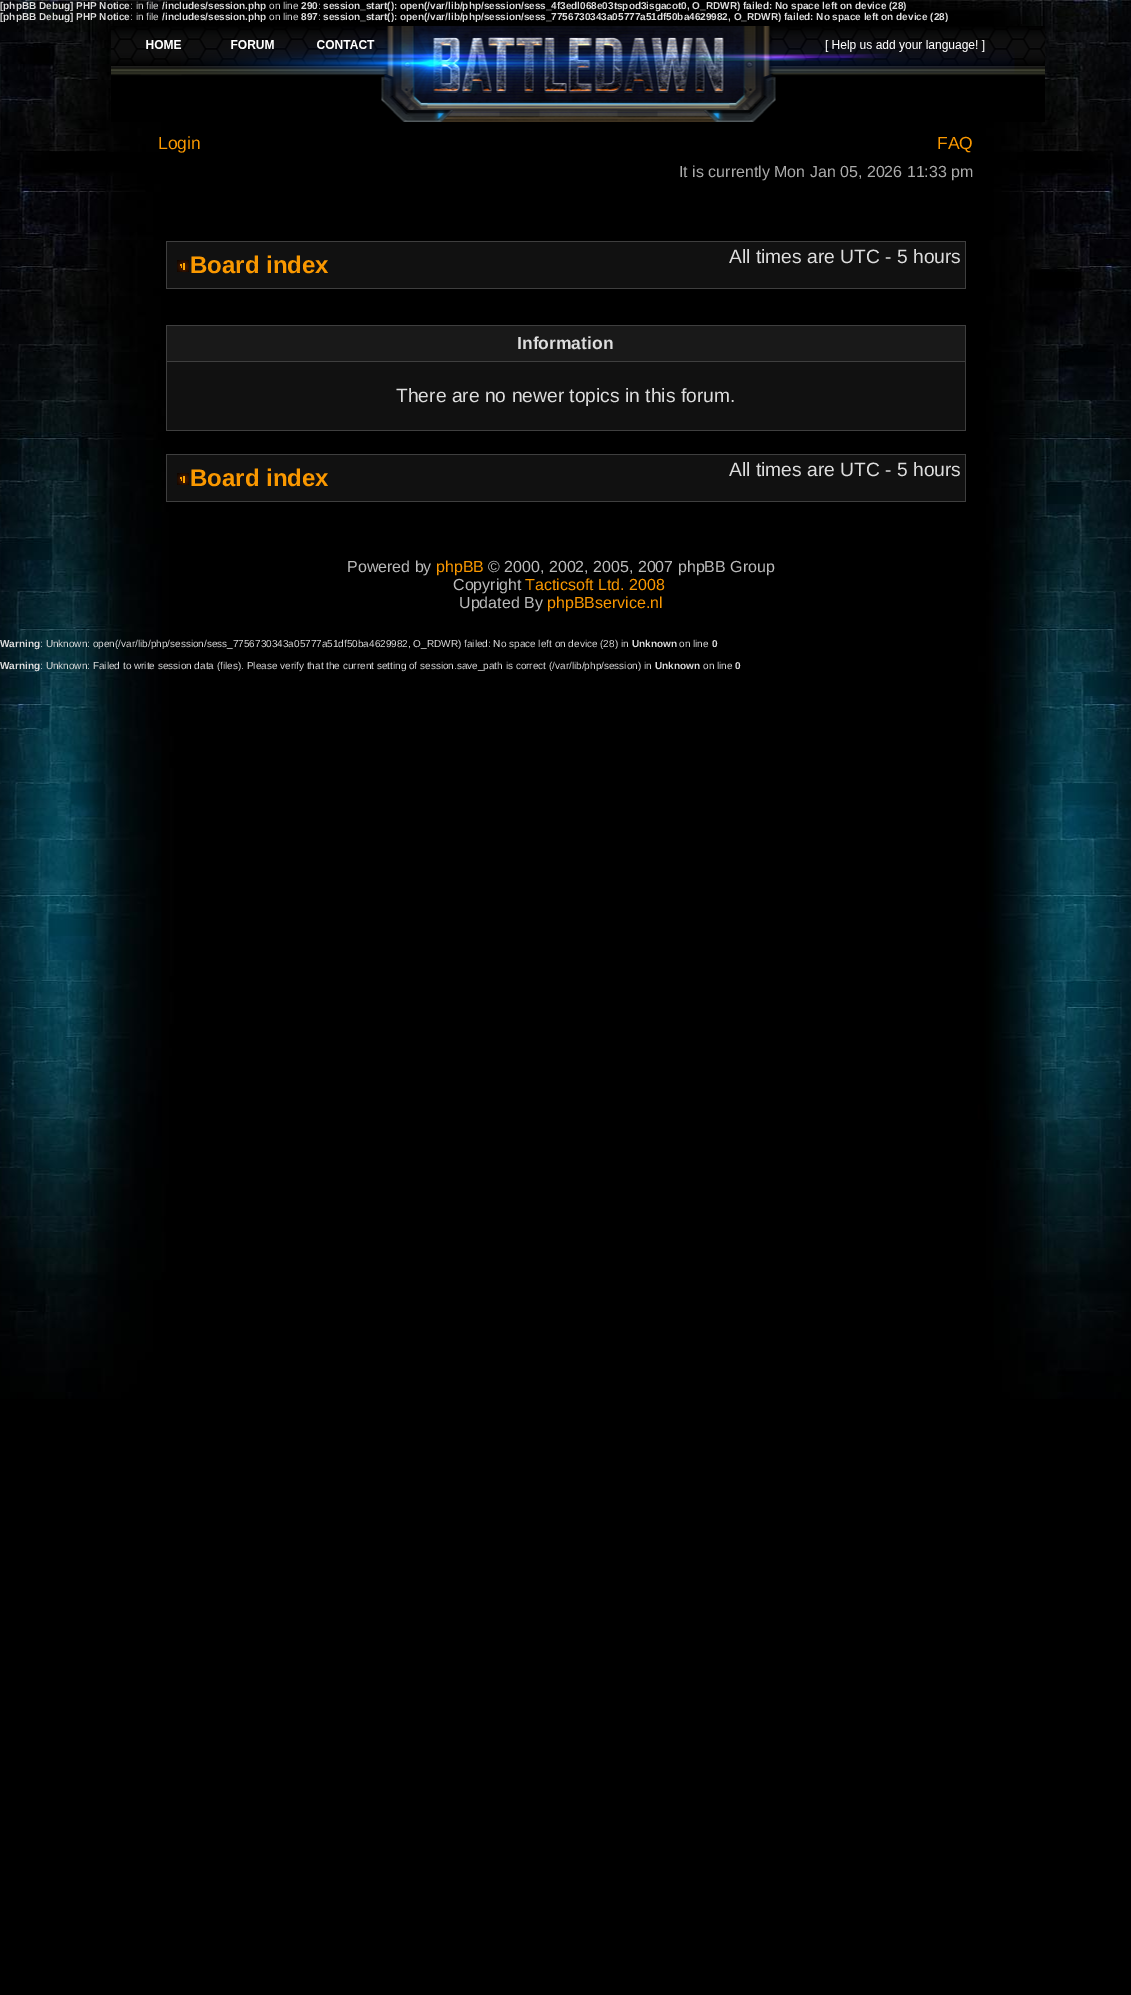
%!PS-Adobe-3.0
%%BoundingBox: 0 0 1131 1995
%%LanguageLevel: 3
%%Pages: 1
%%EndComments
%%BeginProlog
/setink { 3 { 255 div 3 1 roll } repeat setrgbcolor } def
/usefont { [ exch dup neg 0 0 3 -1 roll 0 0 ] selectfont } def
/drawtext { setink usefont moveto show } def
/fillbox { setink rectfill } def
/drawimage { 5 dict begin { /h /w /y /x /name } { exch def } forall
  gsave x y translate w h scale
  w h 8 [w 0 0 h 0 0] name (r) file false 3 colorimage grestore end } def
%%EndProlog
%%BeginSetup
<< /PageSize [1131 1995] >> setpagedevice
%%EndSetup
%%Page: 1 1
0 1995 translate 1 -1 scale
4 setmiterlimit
0 0 1131 1995 0 0 0 fillbox
(assets/img1.rgb) 0 0 1131 1399 drawimage
([phpBB Debug] PHP Notice) 0 9 /LiberationSans-Bold 10 221 221 221 drawtext
(: in file) 130 9 /LiberationSans-Regular 10 221 221 221 drawtext
(/includes/session.php) 162 9 /LiberationSans-Bold 10 221 221 221 drawtext
(on line) 269 9 /LiberationSans-Regular 10 221 221 221 drawtext
(290) 301 9 /LiberationSans-Bold 10 221 221 221 drawtext
(:) 318 9 /LiberationSans-Regular 10 221 221 221 drawtext
(session_start\(\): open\(/var/lib/php/session/sess_4f3edl068e03tspod3isgacot0, O_RDWR\) failed: No space left on device \(28\)) 323 9 /LiberationSans-Bold 10 221 221 221 drawtext
([phpBB Debug] PHP Notice) 0 20 /LiberationSans-Bold 10 221 221 221 drawtext
(: in file) 130 20 /LiberationSans-Regular 10 221 221 221 drawtext
(/includes/session.php) 162 20 /LiberationSans-Bold 10 221 221 221 drawtext
(on line) 269 20 /LiberationSans-Regular 10 221 221 221 drawtext
(897) 301 20 /LiberationSans-Bold 10 221 221 221 drawtext
(:) 318 20 /LiberationSans-Regular 10 221 221 221 drawtext
(session_start\(\): open\(/var/lib/php/session/sess_7756730343a05777a51df50ba4629982, O_RDWR\) failed: No space left on device \(28\)) 323 20 /LiberationSans-Bold 10 221 221 221 drawtext
(assets/img2.rgb) 111 26 934 96 drawimage
(Login) 158 149 /LiberationSans-Regular 17.5 250 152 0 drawtext
(FAQ) 937 149 /LiberationSans-Regular 17.5 250 152 0 drawtext
(It is currently Mon Jan 05, 2026 11:33 pm) 679 177 /LiberationSans-Regular 16 171 171 171 drawtext
166 241 800 48 63 63 63 fillbox
167 242 798 46 17 17 17 fillbox
(assets/img3.rgb) 177 260 12 12 drawimage
(Board index) 190 273 /LiberationSans-Bold 24 250 152 0 drawtext
(All times are UTC - 5 hours) 729 263 /LiberationSans-Regular 19.25 221 221 221 drawtext
166 325 800 106 63 63 63 fillbox
167 326 798 35 25 25 25 fillbox
(Information) 517 349 /LiberationSans-Bold 17.5 221 221 221 drawtext
167 362 798 68 17 17 17 fillbox
(There are no newer topics in this forum.) 396 402 /LiberationSans-Regular 19.25 221 221 221 drawtext
166 454 800 48 63 63 63 fillbox
167 455 798 46 17 17 17 fillbox
(assets/img3.rgb) 177 473 12 12 drawimage
(Board index) 190 486 /LiberationSans-Bold 24 250 152 0 drawtext
(All times are UTC - 5 hours) 729 476 /LiberationSans-Regular 19.25 221 221 221 drawtext
(Powered by) 347 572 /LiberationSans-Regular 16 187 187 187 drawtext
(phpBB) 436 572 /LiberationSans-Regular 16 250 152 0 drawtext
(© 2000, 2002, 2005, 2007 phpBB Group) 488 572 /LiberationSans-Regular 16 187 187 187 drawtext
(Copyright) 453 590 /LiberationSans-Regular 16 187 187 187 drawtext
(Tacticsoft Ltd. 2008) 525 590 /LiberationSans-Regular 16 250 152 0 drawtext
(Updated By) 459 608 /LiberationSans-Regular 16 187 187 187 drawtext
(phpBBservice.nl) 547 608 /LiberationSans-Regular 16 250 152 0 drawtext
(Warning) 0 647 /LiberationSans-Bold 10 221 221 221 drawtext
(: Unknown: open\(/var/lib/php/session/sess_7756730343a05777a51df50ba4629982, O_RDWR\) failed: No space left on device \(28\) in) 40 647 /LiberationSans-Regular 10 221 221 221 drawtext
(Unknown) 632 647 /LiberationSans-Bold 10 221 221 221 drawtext
(on line) 679 647 /LiberationSans-Regular 10 221 221 221 drawtext
(0) 712 647 /LiberationSans-Bold 10 221 221 221 drawtext
(Warning) 0 669 /LiberationSans-Bold 10 221 221 221 drawtext
(: Unknown: Failed to write session data \(files\). Please verify that the current setting of session.save_path is correct \(/var/lib/php/session\) in) 40 669 /LiberationSans-Regular 10 221 221 221 drawtext
(Unknown) 655 669 /LiberationSans-Bold 10 221 221 221 drawtext
(on line) 703 669 /LiberationSans-Regular 10 221 221 221 drawtext
(0) 735 669 /LiberationSans-Bold 10 221 221 221 drawtext
showpage
%%EOF
